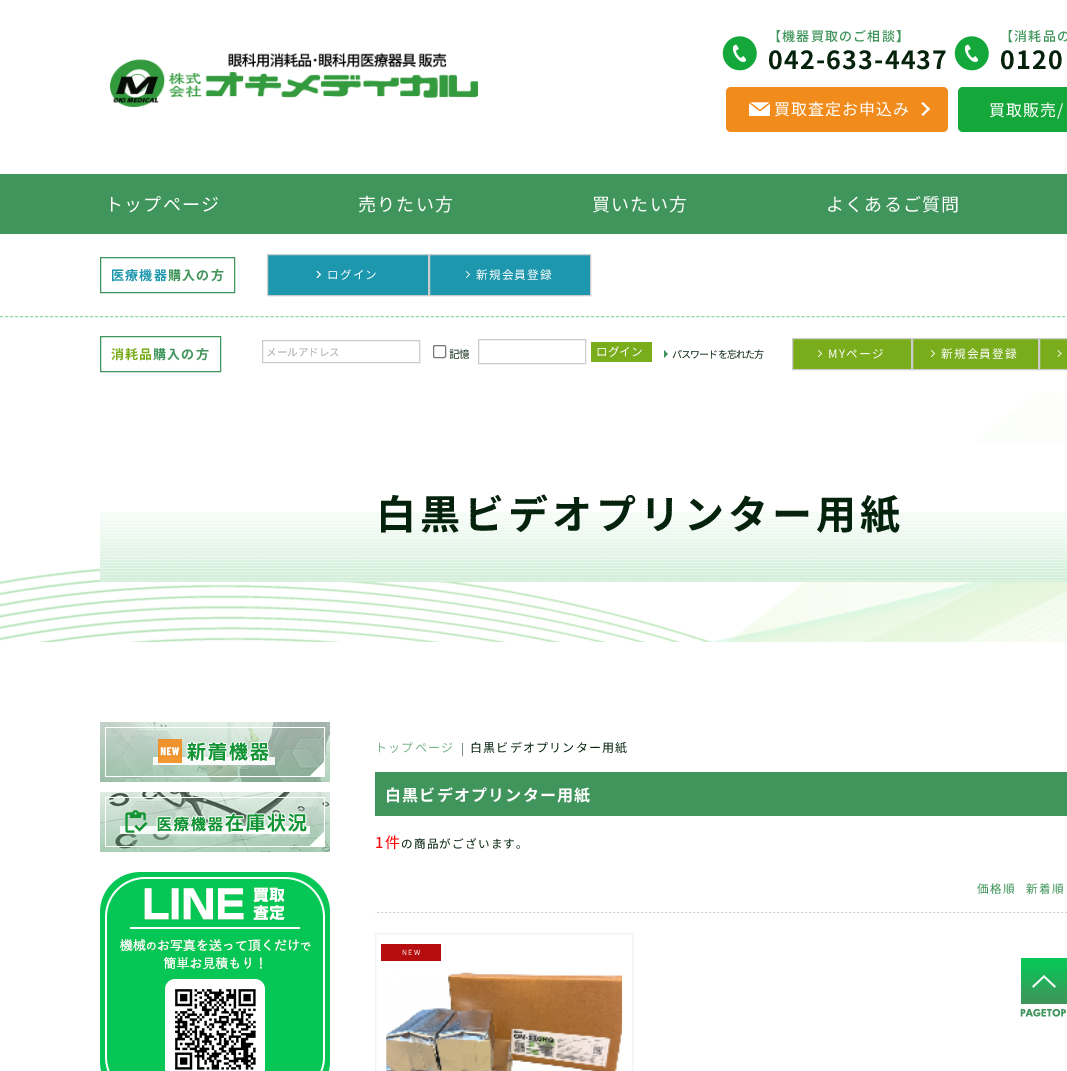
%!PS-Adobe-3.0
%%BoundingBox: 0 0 1067 1071
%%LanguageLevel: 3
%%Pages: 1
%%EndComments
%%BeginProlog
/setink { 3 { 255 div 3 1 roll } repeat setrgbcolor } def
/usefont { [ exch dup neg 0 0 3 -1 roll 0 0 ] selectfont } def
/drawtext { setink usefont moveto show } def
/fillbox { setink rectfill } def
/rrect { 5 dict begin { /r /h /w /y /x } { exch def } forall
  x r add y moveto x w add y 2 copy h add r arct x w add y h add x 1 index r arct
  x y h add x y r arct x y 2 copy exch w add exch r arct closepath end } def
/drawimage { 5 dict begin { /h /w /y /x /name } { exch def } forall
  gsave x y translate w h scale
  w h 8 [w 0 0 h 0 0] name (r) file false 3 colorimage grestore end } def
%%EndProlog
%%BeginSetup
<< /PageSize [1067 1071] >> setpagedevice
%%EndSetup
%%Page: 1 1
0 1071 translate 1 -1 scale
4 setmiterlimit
0 0 1067 1071 255 255 255 fillbox
(assets/img1.rgb) 110 52 368 55 drawimage
(assets/img2.rgb) 722 36 35 35 drawimage
/NotoSansJP-Medium 13 usefont
63 149 91 setink
768 41 moveto 1.2 0 (【機器買取のご相談】) ashow
/NotoSansJP-Bold 25 usefont
4 34 12 setink
768 69 moveto 1.2 0 (042-633-4437) ashow
241 139 27 setink
726 87 222 45 5 rrect fill
(assets/img3.rgb) 749 102 21 14 drawimage
/NotoSansJP-Regular 16 usefont
255 255 255 setink
774 115 moveto 1 0 (買取査定お申込み) ashow
923 102 moveto 930 109 lineto 928.5 110.5 lineto 921.5 103.5 lineto closepath fill
928.5 107.5 moveto 930 109 lineto 923 116 lineto 921.5 114.5 lineto closepath fill
(assets/img2.rgb) 954 36 35 35 drawimage
/NotoSansJP-Medium 13 usefont
63 149 91 setink
1000 41 moveto 1.2 0 (【消耗品の) ashow
/NotoSansJP-Bold 25 usefont
4 34 12 setink
1000 69 moveto 1.2 0 (0120) ashow
20 168 59 setink
958 87 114 45 5 rrect fill
/NotoSansJP-Regular 16 usefont
255 255 255 setink
989 116 moveto 1 0 (買取販売/) ashow
0 174 1067 60 63 149 91 fillbox
/NotoSansJP-Regular 18 usefont
255 255 255 setink
105 211 moveto 1.2 0 (トップページ) ashow
358 211 moveto 1.2 0 (売りたい方) ashow
592 211 moveto 1.2 0 (買いたい方) ashow
826 211 moveto 1.2 0 (よくあるご質問) ashow
63 149 91 setink
100.5 257.5 134 35 rectstroke
/NotoSansJP-Bold 13 usefont
28 151 173 setink
111 280 moveto 1.2 0 (医療機器) ashow
63 149 91 setink
168 280 moveto 1.2 0 (購入の方) ashow
28 151 173 setink
267.5 254.5 moveto 428.5 254.5 lineto 428.5 295.5 lineto 267.5 295.5 lineto closepath gsave fill grestore
204 204 204 setink
stroke
255 255 255 setink
317.5 271 moveto 321 274.5 lineto 320 275 lineto 316.5 271.5 lineto closepath fill
320 274 moveto 321 274.5 lineto 317.5 278 lineto 316.5 277.5 lineto closepath fill
/NotoSansJP-Regular 11.6 usefont
327 279 moveto 1.2 0 (ログイン) ashow
28 151 173 setink
429.5 254.5 moveto 590.5 254.5 lineto 590.5 295.5 lineto 429.5 295.5 lineto closepath gsave fill grestore
204 204 204 setink
stroke
255 255 255 setink
466.5 271 moveto 470 274.5 lineto 469.5 275 lineto 466 271.5 lineto closepath fill
469.5 274 moveto 470 274.5 lineto 466.5 278 lineto 466 277.5 lineto closepath fill
476 279 moveto 1.2 0 (新規会員登録) ashow
149 216 167 setink
[3 2.01] 0 setdash
0 316.5 moveto 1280 316.5 lineto stroke
63 149 91 setink
[] 0 setdash
100.5 336.5 120 35 rectstroke
/NotoSansJP-Bold 13 usefont
122 173 28 setink
111 359 moveto 1.2 0 (消耗品) ashow
63 149 91 setink
153 359 moveto 1.2 0 (購入の方) ashow
204 204 204 setink
262.5 340.5 157 22 rectstroke
(メールアドレス) 266 356 /NotoSansJP-Regular 10.5 170 170 170 drawtext
118 118 118 setink
433.5 345.5 12 12 1.5 rrect stroke
4 34 12 setink
449 358 moveto -0.9 0 (記憶) ashow
204 204 204 setink
478.5 339.5 107 24 rectstroke
591 342 61 20 122 173 28 fillbox
(ログイン) 596 356 /NotoSansJP-Regular 11.6 255 255 255 drawtext
63 149 91 setink
664 358 moveto 664 350 lineto 668 354 lineto closepath fill
/NotoSansJP-Regular 10 usefont
4 34 12 setink
672 358 moveto -0.9 0 (パスワードを忘れた方) ashow
122 173 28 setink
792.5 338.5 moveto 911.5 338.5 lineto 911.5 369.5 lineto 792.5 369.5 lineto closepath gsave fill grestore
204 204 204 setink
stroke
255 255 255 setink
818.5 350 moveto 822 353.5 lineto 821.5 354 lineto 818 350.5 lineto closepath fill
821.5 353 moveto 822 353.5 lineto 818.5 357 lineto 818 356.5 lineto closepath fill
/NotoSansJP-Regular 11.6 usefont
828 358 moveto 1.2 0 (MYページ) ashow
122 173 28 setink
912.5 338.5 moveto 1038.5 338.5 lineto 1038.5 369.5 lineto 912.5 369.5 lineto closepath gsave fill grestore
204 204 204 setink
stroke
255 255 255 setink
931.5 350 moveto 935 353.5 lineto 934.5 354 lineto 931 350.5 lineto closepath fill
934.5 353 moveto 935 353.5 lineto 931.5 357 lineto 931 356.5 lineto closepath fill
941 358 moveto 1.2 0 (新規会員登録) ashow
122 173 28 setink
1039.5 338.5 moveto 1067.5 338.5 lineto 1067.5 369.5 lineto 1039.5 369.5 lineto closepath gsave fill grestore
204 204 204 setink
stroke
255 255 255 setink
1058 350 moveto 1061.5 353.5 lineto 1061 354 lineto 1057.5 350.5 lineto closepath fill
1061 353 moveto 1061.5 353.5 lineto 1058 357 lineto 1057.5 356.5 lineto closepath fill
(assets/img4.rgb) 0 392 1067 250 drawimage
(assets/img5.rgb) 100 442 967 140 drawimage
/NotoSansJP-Bold 40 usefont
4 34 12 setink
376 529 moveto 4 0 (白黒ビデオプリンター用紙) ashow
(assets/img6.rgb) 100 722 230 60 drawimage
(assets/img7.rgb) 100 792 230 60 drawimage
(assets/img8.rgb) 100 872 230 199 drawimage
/NotoSansJP-Regular 12 usefont
121 181 140 setink
375 752 moveto 1.2 0 (トップページ) ashow
79 100 85 setink
461 753 moveto 1.2 0 (|) ashow
4 34 12 setink
470 752 moveto 1.2 0 (白黒ビデオプリンター用紙) ashow
375 772 692 44 63 149 91 fillbox
/NotoSansJP-Bold 16 usefont
255 255 255 setink
385 801 moveto 1.2 0 (白黒ビデオプリンター用紙) ashow
/NotoSansJP-Regular 15 usefont
255 0 0 setink
375 848 moveto 1.2 0 (1件) ashow
/NotoSansJP-Regular 11.6 usefont
4 34 12 setink
401 848 moveto 1.2 0 (の商品がございます。) ashow
(assets/img9.rgb) 375 912 692 1 drawimage
63 149 91 setink
977 893 moveto 1.2 0 (価格順) ashow
1026 893 moveto 1.2 0 (新着順) ashow
242 242 242 setink
375.5 933.5 257 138 rectstroke
381 944 60 17 182 14 14 fillbox
/NotoSansJP-Regular 7 usefont
255 255 255 setink
402 955 moveto 1.2 0 (NEW) ashow
(assets/img10.rgb) 386 972 236 99 drawimage
(assets/img11.rgb) 1020 958 47 59 drawimage
showpage
%%EOF
